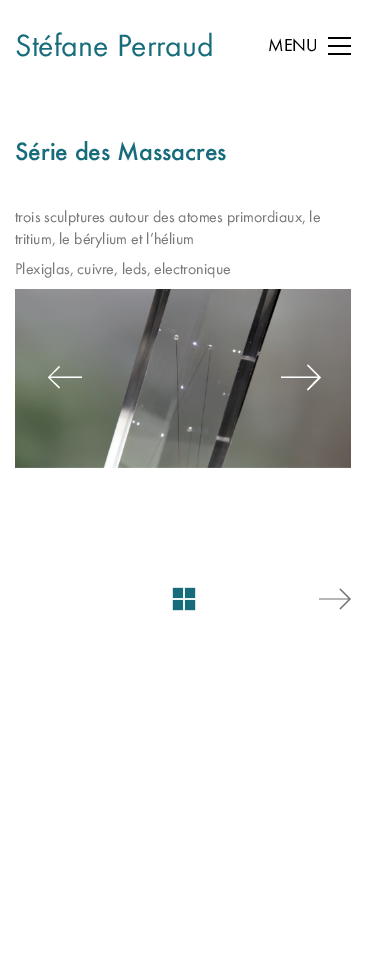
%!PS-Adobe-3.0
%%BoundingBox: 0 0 366 967
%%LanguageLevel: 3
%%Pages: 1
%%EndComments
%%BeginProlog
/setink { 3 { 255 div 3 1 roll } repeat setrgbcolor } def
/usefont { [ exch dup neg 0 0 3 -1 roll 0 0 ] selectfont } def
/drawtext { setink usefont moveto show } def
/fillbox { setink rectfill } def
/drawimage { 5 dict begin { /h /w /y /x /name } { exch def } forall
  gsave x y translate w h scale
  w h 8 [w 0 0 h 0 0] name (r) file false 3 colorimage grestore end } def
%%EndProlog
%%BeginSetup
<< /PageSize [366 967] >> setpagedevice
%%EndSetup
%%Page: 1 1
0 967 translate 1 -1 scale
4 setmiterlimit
0 0 366 967 255 255 255 fillbox
(Stéfane Perraud) 15 56 /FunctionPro-Regular 32 23 108 124 drawtext
(MENU) 268 51 /FunctionPro-Regular 18 0 0 0 drawtext
328 37 23 2 0 0 0 fillbox
328 45 23 2 0 0 0 fillbox
328 53 23 2 0 0 0 fillbox
(Série des Massacres) 15 160 /FunctionPro-Medium 26 23 108 124 drawtext
(trois sculptures autour des atomes primordiaux, le) 15 222 /FunctionPro-Regular 16 119 119 119 drawtext
(tritium, le bérylium et l’hélium) 15 244 /FunctionPro-Regular 16 119 119 119 drawtext
(Plexiglas, cuivre, leds, electronique) 15 274 /FunctionPro-Regular 16 119 119 119 drawtext
(assets/img1.rgb) 15 289 336 179 drawimage
255 255 255 setink
82 376.5 moveto 50 376.5 lineto 60 367 lineto 59 366 lineto 48 377.5 lineto 59 388.5 lineto 60 387.5 lineto 50 378 lineto 82 378 lineto closepath fill
308 364.5 moveto 307 365.5 lineto 318 376.5 lineto 281 376.5 lineto 281 378 lineto 318 378 lineto 307 389.5 lineto 308 390.5 lineto 321 377.5 lineto closepath fill
(assets/img2.rgb) 172 587 24 24 drawimage
119 119 119 setink
340.5 588.5 moveto 339.5 589.5 lineto 348.5 598.5 lineto 319 598.5 lineto 319 599.5 lineto 348.5 599.5 lineto 339.5 608.5 lineto 340.5 609.5 lineto 351 599 lineto closepath fill
showpage
%%EOF
